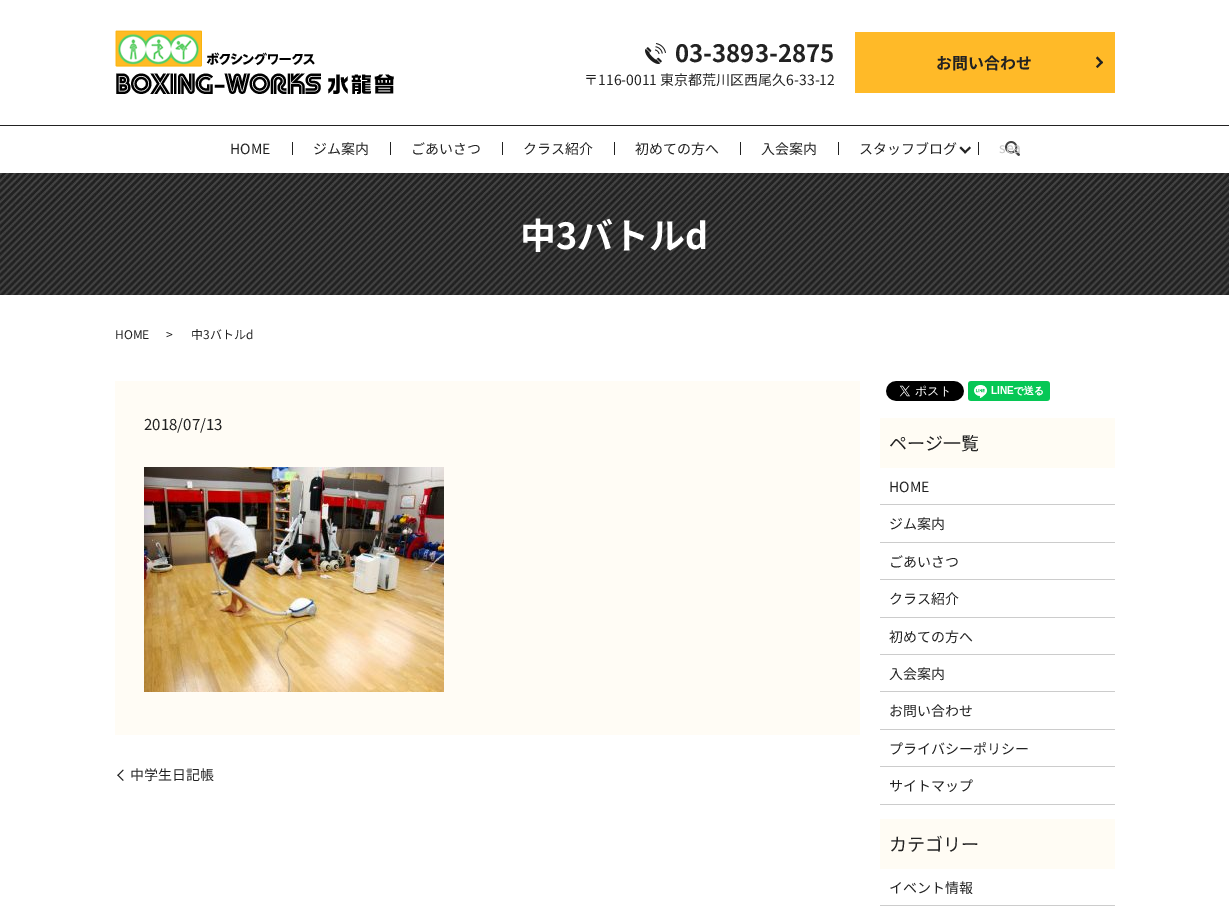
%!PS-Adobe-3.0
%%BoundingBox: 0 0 1229 918
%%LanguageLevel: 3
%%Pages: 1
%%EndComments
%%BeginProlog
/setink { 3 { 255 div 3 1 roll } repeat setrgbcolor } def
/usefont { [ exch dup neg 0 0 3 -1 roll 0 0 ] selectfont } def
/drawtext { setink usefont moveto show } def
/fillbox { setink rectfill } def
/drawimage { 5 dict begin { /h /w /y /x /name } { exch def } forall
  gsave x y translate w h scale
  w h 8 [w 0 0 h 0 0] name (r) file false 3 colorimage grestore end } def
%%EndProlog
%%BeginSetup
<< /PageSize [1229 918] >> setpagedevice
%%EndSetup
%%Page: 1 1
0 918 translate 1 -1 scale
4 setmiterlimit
0 0 1229 918 255 255 255 fillbox
(assets/img1.rgb) 115 30 279 64 drawimage
(assets/img2.rgb) 645 43 21 21 drawimage
(03-3893-2875) 675 62 /NotoSansJP-Bold 24 34 34 34 drawtext
(〒116-0011 東京都荒川区西尾久6-33-12) 584 85 /NotoSansJP-Regular 14 34 34 34 drawtext
855 32 260 61 255 186 40 fillbox
(お問い合わせ) 936 69 /NotoSansJP-Bold 16 34 34 34 drawtext
1097.5 56.5 moveto 1103 62.5 lineto 1101.5 64 lineto 1096 58 lineto closepath fill
1101.5 61 moveto 1103 62.5 lineto 1097.5 68 lineto 1096 66.5 lineto closepath fill
(HOME) 230 154 /NotoSansJP-Regular 14 34 34 34 drawtext
292 142 1 13 34 34 34 fillbox
(ジム案内) 313 154 /NotoSansJP-Regular 14 34 34 34 drawtext
390 142 1 13 34 34 34 fillbox
(ごあいさつ) 411 154 /NotoSansJP-Regular 14 34 34 34 drawtext
502 142 1 13 34 34 34 fillbox
(クラス紹介) 523 154 /NotoSansJP-Regular 14 34 34 34 drawtext
614 142 1 13 34 34 34 fillbox
(初めての方へ) 635 154 /NotoSansJP-Regular 14 34 34 34 drawtext
740 142 1 13 34 34 34 fillbox
(入会案内) 761 154 /NotoSansJP-Regular 14 34 34 34 drawtext
838 142 1 13 34 34 34 fillbox
(スタッフブログ) 859 154 /NotoSansJP-Regular 14 34 34 34 drawtext
971 148 moveto 965 153.5 lineto 964 152 lineto 969.5 146.5 lineto closepath fill
966.5 152 moveto 965 153.5 lineto 959.5 148 lineto 961 146.5 lineto closepath fill
(assets/img3.rgb) 1005 141 15 15 drawimage
978 142 1 13 34 34 34 fillbox
(sea) 999 153 /NotoSansJP-Regular 14 200 200 200 drawtext
0 125 1229 1 34 34 34 fillbox
(assets/img4.rgb) 0 173 1229 122 drawimage
(中3バトルd) 520 249 /NotoSansJP-Bold 36 255 255 255 drawtext
(HOME) 115 339 /NotoSansJP-Regular 12 34 34 34 drawtext
(>) 166 339 /NotoSansJP-Regular 12 34 34 34 drawtext
(中3バトルd) 191 339 /NotoSansJP-Regular 12 34 34 34 drawtext
115 381 745 354 255 252 245 fillbox
(2018/07/13) 144 430 /NotoSansJP-Regular 15 34 34 34 drawtext
(assets/img5.rgb) 144 467 300 225 drawimage
117.5 775 moveto 123 769.5 lineto 123.5 770.5 lineto 118 776 lineto closepath fill
(中学生日記帳) 130 780 /NotoSansJP-Regular 14 34 34 34 drawtext
123 781 moveto 117.5 775.5 lineto 118 774.5 lineto 123.5 780 lineto closepath fill
(assets/img6.rgb) 886 381 78 20 drawimage
(assets/img7.rgb) 968 381 82 20 drawimage
880 418 235 50 255 252 244 fillbox
(ページ一覧) 889 450 /NotoSansJP-Regular 18 34 34 34 drawtext
880 504 235 1 204 204 204 fillbox
(HOME) 889 492 /NotoSansJP-Regular 14 34 34 34 drawtext
880 542 235 1 204 204 204 fillbox
(ジム案内) 889 529 /NotoSansJP-Regular 14 34 34 34 drawtext
880 579 235 1 204 204 204 fillbox
(ごあいさつ) 889 567 /NotoSansJP-Regular 14 34 34 34 drawtext
880 617 235 1 204 204 204 fillbox
(クラス紹介) 889 604 /NotoSansJP-Regular 14 34 34 34 drawtext
880 654 235 1 204 204 204 fillbox
(初めての方へ) 889 642 /NotoSansJP-Regular 14 34 34 34 drawtext
880 691 235 1 204 204 204 fillbox
(入会案内) 889 679 /NotoSansJP-Regular 14 34 34 34 drawtext
880 729 235 1 204 204 204 fillbox
(お問い合わせ) 889 716 /NotoSansJP-Regular 14 34 34 34 drawtext
880 766 235 1 204 204 204 fillbox
(プライバシーポリシー) 889 754 /NotoSansJP-Regular 14 34 34 34 drawtext
880 804 235 1 204 204 204 fillbox
(サイトマップ) 889 791 /NotoSansJP-Regular 14 34 34 34 drawtext
880 819 235 50 255 252 244 fillbox
(カテゴリー) 889 851 /NotoSansJP-Regular 18 34 34 34 drawtext
880 905 235 1 204 204 204 fillbox
(イベント情報) 889 893 /NotoSansJP-Regular 14 34 34 34 drawtext
showpage
%%EOF
